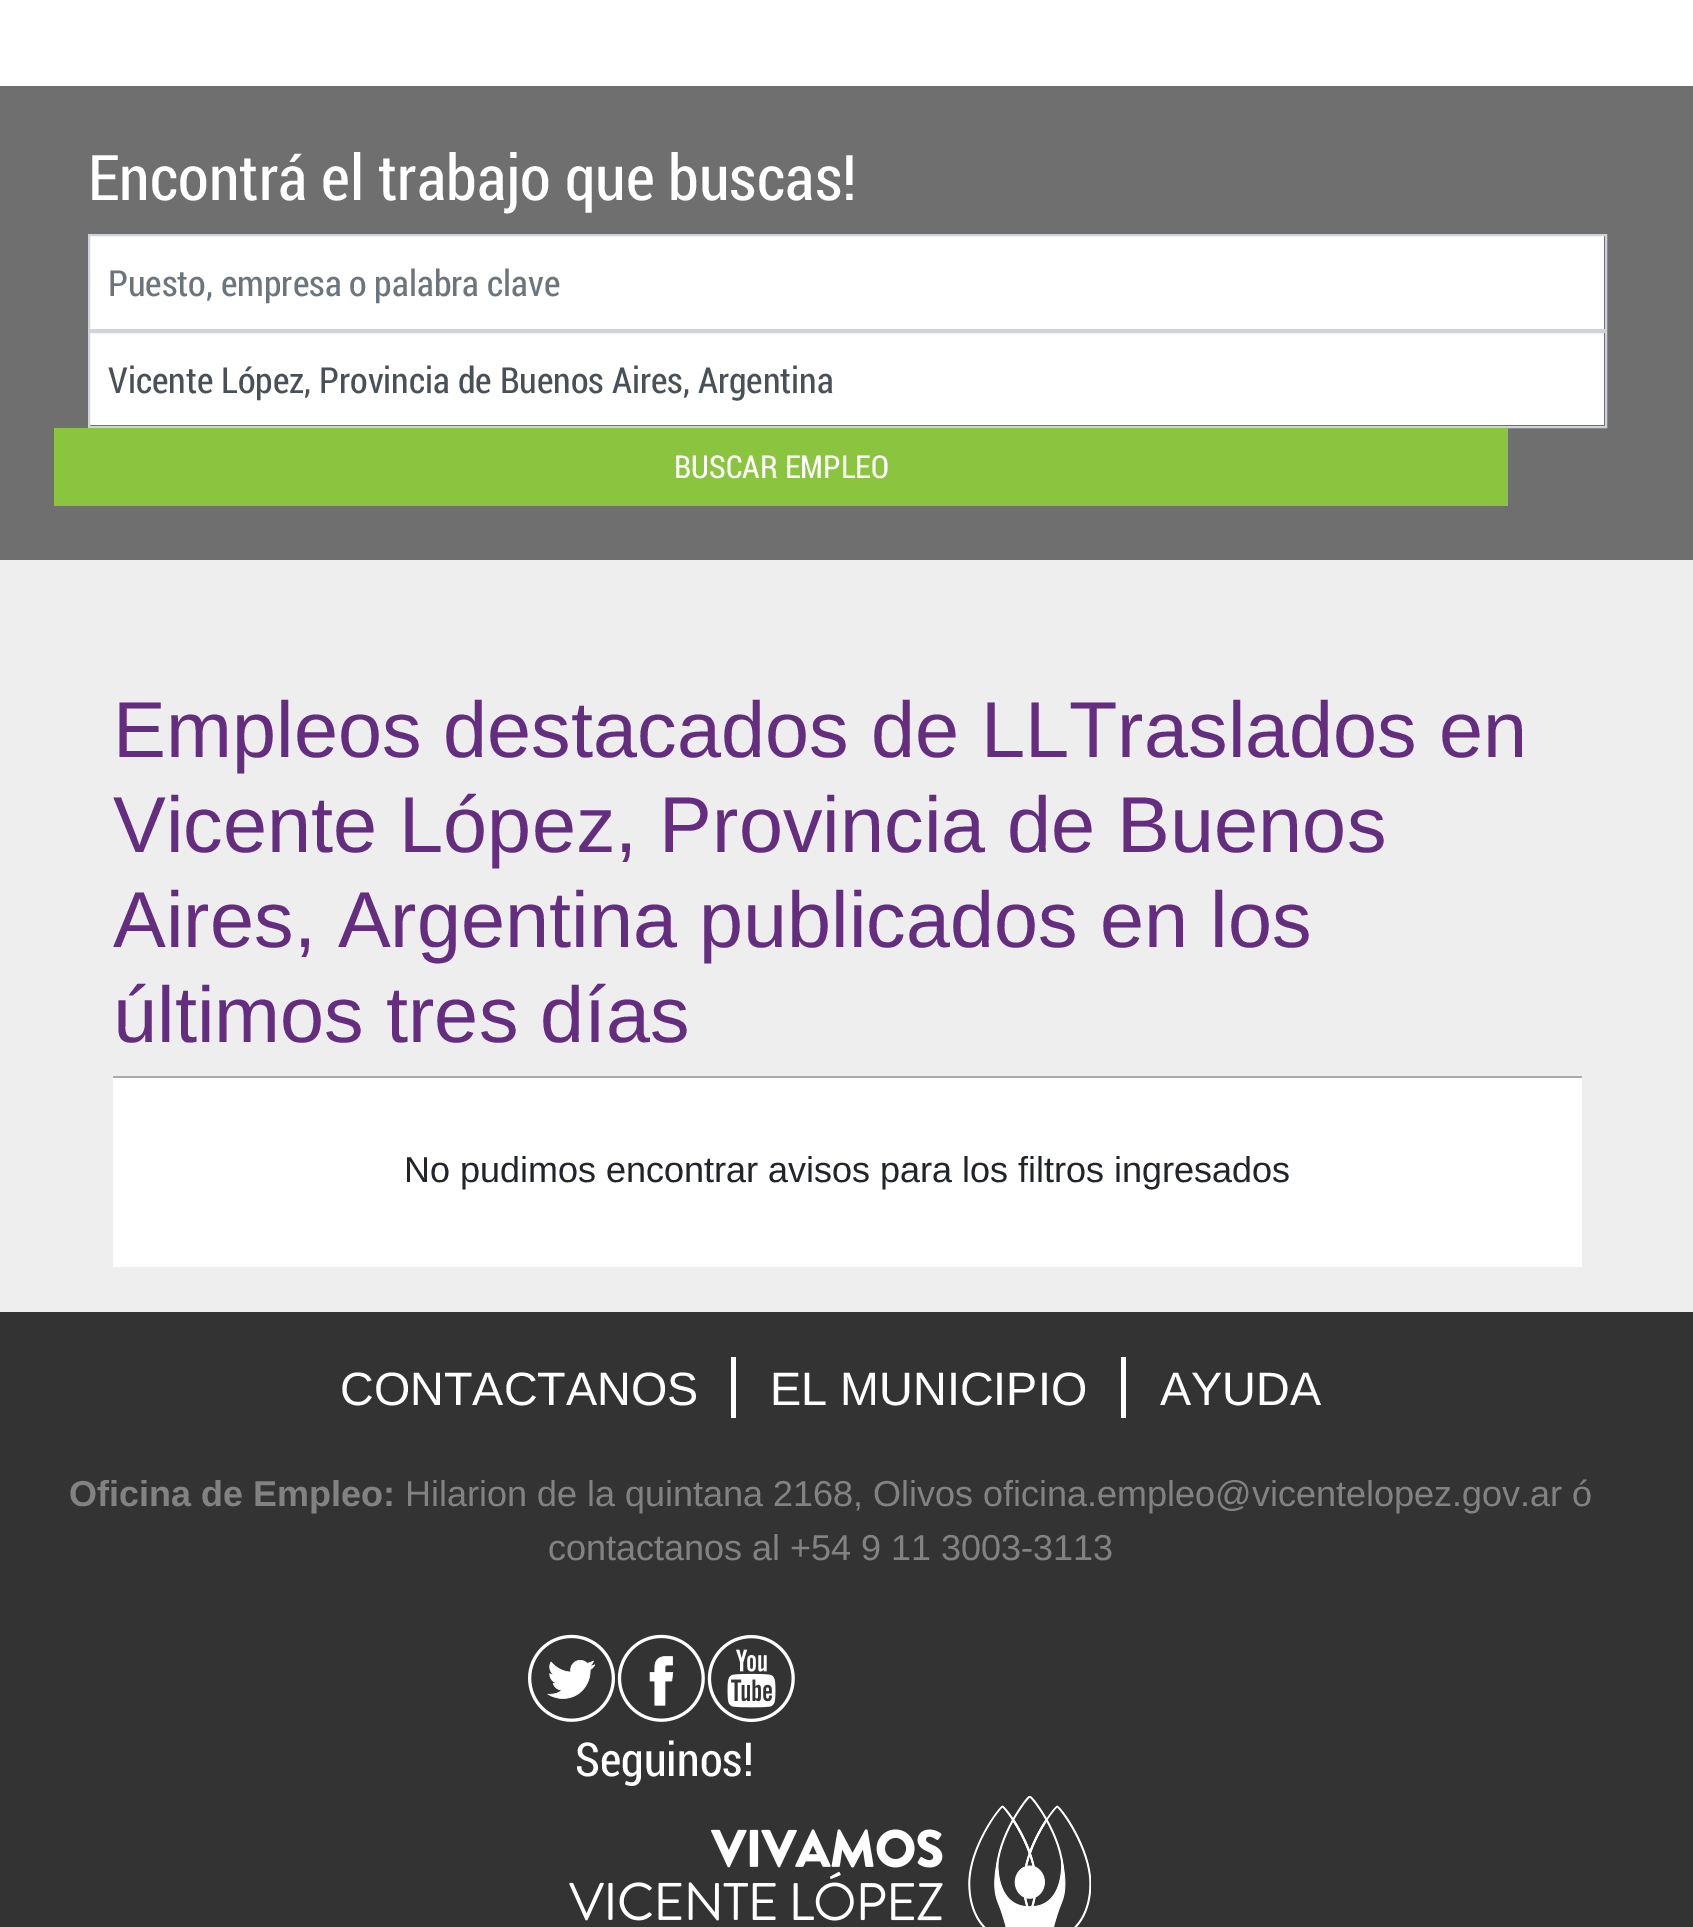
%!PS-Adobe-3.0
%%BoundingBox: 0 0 1693 1927
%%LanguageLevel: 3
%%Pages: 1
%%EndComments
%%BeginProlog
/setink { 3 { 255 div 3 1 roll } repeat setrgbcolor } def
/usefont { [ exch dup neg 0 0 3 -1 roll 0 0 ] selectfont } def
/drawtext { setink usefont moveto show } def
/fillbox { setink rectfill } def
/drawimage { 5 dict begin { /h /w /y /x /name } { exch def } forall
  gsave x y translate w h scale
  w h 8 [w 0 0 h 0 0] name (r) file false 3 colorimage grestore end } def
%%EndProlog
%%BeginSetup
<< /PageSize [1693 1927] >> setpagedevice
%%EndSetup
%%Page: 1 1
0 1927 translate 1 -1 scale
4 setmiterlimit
0 0 1693 1927 238 238 238 fillbox
0 0 1693 86 255 255 255 fillbox
0 86 1693 474 111 111 111 fillbox
(Encontrá el trabajo que buscas!) 88 200 /RobotoCondensed-Regular 63 255 255 255 drawtext
90 236 1514 93 255 255 255 fillbox
206 212 218 setink
2 setlinewidth
89 235 1517 95 rectstroke
(Puesto, empresa o palabra clave) 108 296 /RobotoCondensed-Regular 36 108 117 125 drawtext
90 333 1514 92 255 255 255 fillbox
206 212 218 setink
89 332 1517 95 rectstroke
(Vicente López, Provincia de Buenos Aires, Argentina) 108 393 /RobotoCondensed-Regular 36 73 80 87 drawtext
54 428 1454 78 139 197 63 fillbox
(BUSCAR EMPLEO) 674 478 /RobotoCondensed-Regular 31.5 255 255 255 drawtext
(Empleos destacados de LLTraslados en) 113 757 /LiberationSans-Regular 79.25 101 45 128 drawtext
(Vicente López, Provincia de Buenos) 113 852 /LiberationSans-Regular 79.25 101 45 128 drawtext
(Aires, Argentina publicados en los) 113 947 /LiberationSans-Regular 79.25 101 45 128 drawtext
(últimos tres días) 113 1042 /LiberationSans-Regular 79.25 101 45 128 drawtext
113 1078 1469 189 255 255 255 fillbox
113 1076 1469 2 169 169 169 fillbox
(No pudimos encontrar avisos para los filtros ingresados) 404 1182 /LiberationSans-Regular 36 33 37 41 drawtext
0 1312 1693 615 51 51 51 fillbox
(CONTACTANOS) 340 1405 /LiberationSans-Regular 46.75 255 255 255 drawtext
731 1357 5 61 255 255 255 fillbox
(EL MUNICIPIO) 770 1405 /LiberationSans-Regular 46.75 255 255 255 drawtext
1121 1357 5 61 255 255 255 fillbox
(AYUDA) 1160 1405 /LiberationSans-Regular 46.75 255 255 255 drawtext
(Oficina de Empleo:) 69 1506 /LiberationSans-Bold 36 130 130 130 drawtext
(Hilarion de la quintana 2168, Olivos oficina.empleo@vicentelopez.gov.ar ó) 405 1506 /LiberationSans-Regular 36 130 130 130 drawtext
(contactanos al +54 9 11 3003-3113) 548 1560 /LiberationSans-Regular 36 130 130 130 drawtext
(assets/img1.rgb) 528 1634 87 88 drawimage
(assets/img2.rgb) 617 1634 88 88 drawimage
(assets/img3.rgb) 707 1635 88 87 drawimage
(Seguinos!) 575 1776 /RobotoCondensed-Regular 46.75 255 255 255 drawtext
(assets/img4.rgb) 569 1796 522 131 drawimage
showpage
%%EOF
